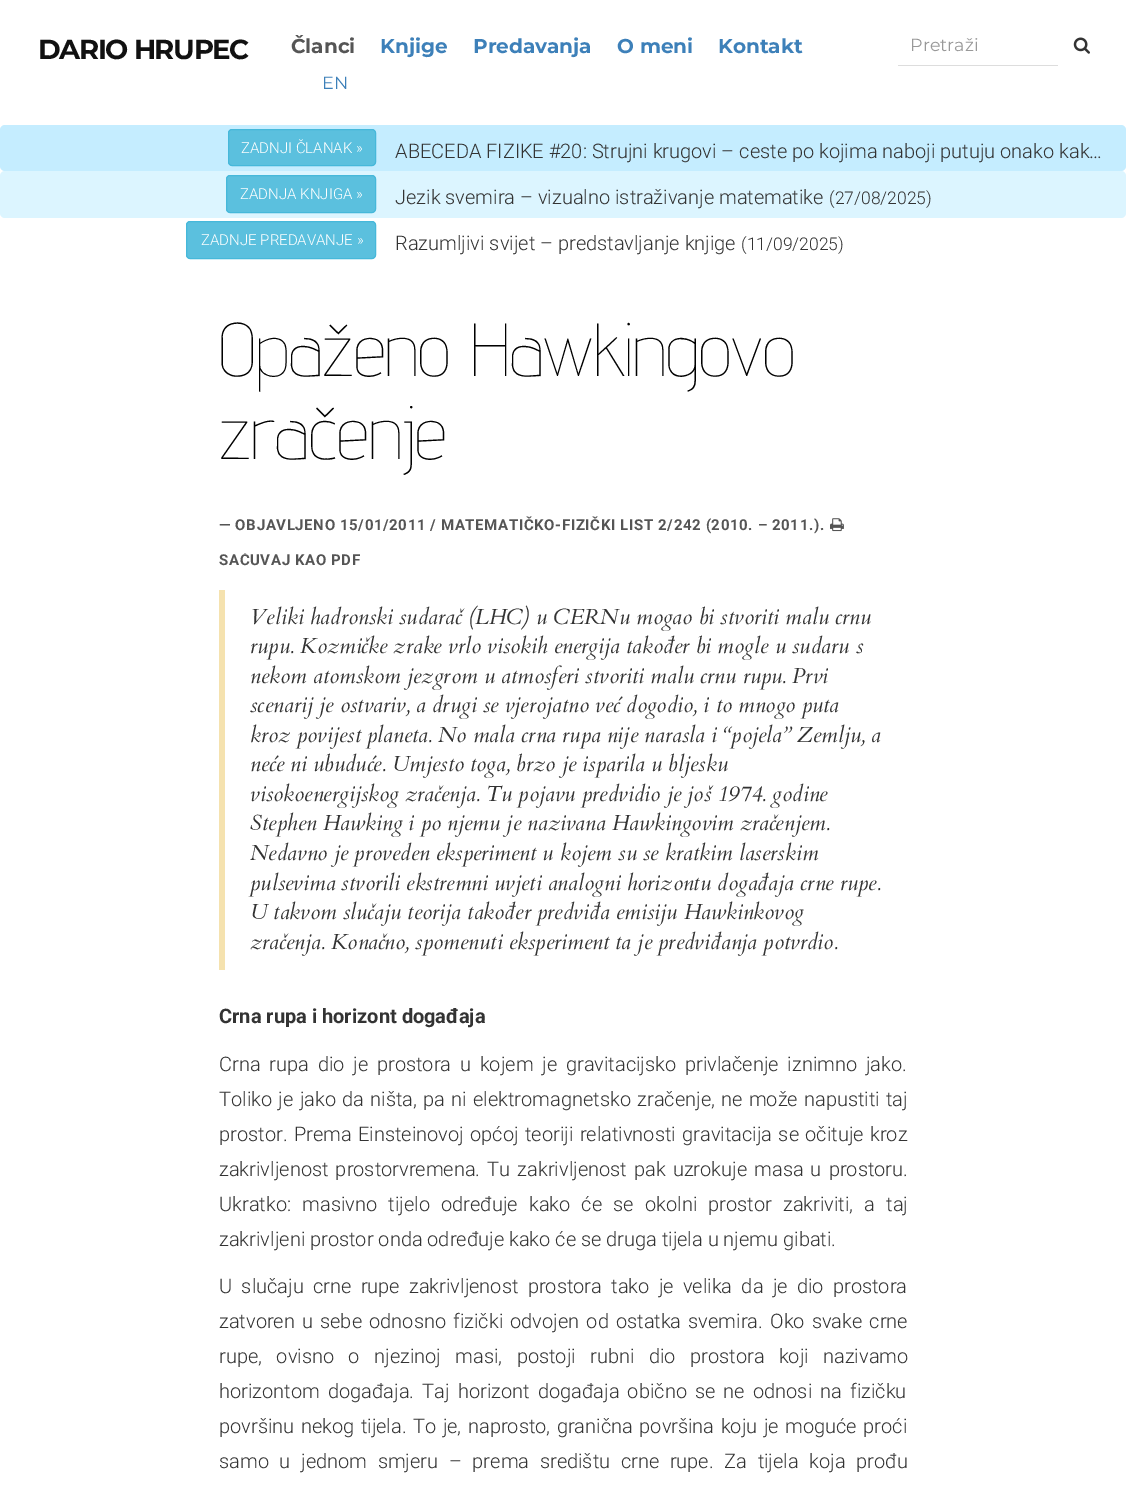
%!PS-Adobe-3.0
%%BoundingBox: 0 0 1126 1488
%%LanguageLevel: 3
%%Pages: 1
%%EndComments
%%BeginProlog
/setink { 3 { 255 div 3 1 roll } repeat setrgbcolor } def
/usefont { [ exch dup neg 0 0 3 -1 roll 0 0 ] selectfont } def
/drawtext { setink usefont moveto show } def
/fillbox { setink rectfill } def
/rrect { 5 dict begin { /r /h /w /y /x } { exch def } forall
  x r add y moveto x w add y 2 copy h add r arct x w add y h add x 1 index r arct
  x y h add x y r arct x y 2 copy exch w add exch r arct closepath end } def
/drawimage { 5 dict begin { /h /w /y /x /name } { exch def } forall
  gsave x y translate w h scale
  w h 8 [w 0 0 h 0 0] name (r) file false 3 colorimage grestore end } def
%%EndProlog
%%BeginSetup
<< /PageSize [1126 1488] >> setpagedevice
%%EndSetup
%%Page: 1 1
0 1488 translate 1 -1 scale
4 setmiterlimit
0 0 1126 1488 255 255 255 fillbox
/Montserrat-Bold 27.5 usefont
17 17 17 setink
38 59 moveto -1.4 0 (DARIO HRUPEC) ashow
(Članci) 291 53 /Montserrat-Bold 20 85 85 85 drawtext
(Knjige) 380 53 /Montserrat-Bold 20 61 128 185 drawtext
(Predavanja) 473 53 /Montserrat-Bold 20 61 128 185 drawtext
(O meni) 617 53 /Montserrat-Bold 20 61 128 185 drawtext
(Kontakt) 718 53 /Montserrat-Bold 20 61 128 185 drawtext
898 65 160 1 221 221 221 fillbox
(Pretraži) 910 51 /Montserrat-Regular 17.5 153 153 153 drawtext
(assets/img1.rgb) 1073 37 17 17 drawimage
(EN) 322 89 /Montserrat-Regular 17.5 61 128 185 drawtext
197 237 255 setink
0 125 1126 46 5 rrect fill
91 192 222 setink
228.5 129.5 147 36 3.5 rrect gsave fill grestore
70 184 218 setink
stroke
(ZADNJI ČLANAK ») 241 153 /Roboto-Light 15 255 255 255 drawtext
(ABECEDA FIZIKE #20: Strujni krugovi – ceste po kojima naboji putuju onako kak…) 395 158 /Roboto-Light 20 51 51 51 drawtext
220 245 255 setink
0 171 1126 47 5 rrect fill
91 192 222 setink
226.5 175.5 149 37 3.5 rrect gsave fill grestore
70 184 218 setink
stroke
(ZADNJA KNJIGA ») 240 199 /Roboto-Light 15 255 255 255 drawtext
(Jezik svemira – vizualno istraživanje matematike) 395 204 /Roboto-Light 20 51 51 51 drawtext
(\(27/08/2025\)) 829 204 /Roboto-Light 17.5 51 51 51 drawtext
91 192 222 setink
186.5 221.5 189 37 3.5 rrect gsave fill grestore
70 184 218 setink
stroke
(ZADNJE PREDAVANJE ») 201 245 /Roboto-Light 15 255 255 255 drawtext
(Razumljivi svijet – predstavljanje knjige) 395 250 /Roboto-Light 20 51 51 51 drawtext
(\(11/09/2025\)) 741 250 /Roboto-Light 17.5 51 51 51 drawtext
(Opaženo Hawkingovo) 219 376 /AdventPro-Thin 75 0 0 0 drawtext
(zračenje) 219 459 /AdventPro-Thin 75 0 0 0 drawtext
/Roboto-Bold 15 usefont
85 85 85 setink
219 530 moveto 0.62 0 (— OBJAVLJENO 15/01/2011 / MATEMATIČKO-FIZIČKI LIST 2/242 \(2010. – 2011.\).) ashow
(assets/img2.rgb) 830 518 14 14 drawimage
gsave
219 553 142 15 rectclip
219 565 moveto 0.62 0 (SAČUVAJ KAO PDF) ashow
grestore
219 590 6 380 245 226 175 fillbox
(Veliki hadronski sudarač \(LHC\) u CERNu mogao bi stvoriti malu crnu) 250 624 /Cardo-Italic 21.9 51 51 51 drawtext
(rupu. Kozmičke zrake vrlo visokih energija također bi mogle u sudaru s) 250 653 /Cardo-Italic 21.9 51 51 51 drawtext
(nekom atomskom jezgrom u atmosferi stvoriti malu crnu rupu. Prvi) 250 683 /Cardo-Italic 21.9 51 51 51 drawtext
(scenarij je ostvariv, a drugi se vjerojatno već dogodio, i to mnogo puta) 250 712 /Cardo-Italic 21.9 51 51 51 drawtext
(kroz povijest planeta. No mala crna rupa nije narasla i “pojela” Zemlju, a) 250 742 /Cardo-Italic 21.9 51 51 51 drawtext
(neće ni ubuduće. Umjesto toga, brzo je isparila u bljesku) 250 771 /Cardo-Italic 21.9 51 51 51 drawtext
(visokoenergijskog zračenja. Tu pojavu predvidio je još 1974. godine) 250 801 /Cardo-Italic 21.9 51 51 51 drawtext
(Stephen Hawking i po njemu je nazivana Hawkingovim zračenjem.) 250 830 /Cardo-Italic 21.9 51 51 51 drawtext
(Nedavno je proveden eksperiment u kojem su se kratkim laserskim) 250 860 /Cardo-Italic 21.9 51 51 51 drawtext
(pulsevima stvorili ekstremni uvjeti analogni horizontu događaja crne rupe.) 250 890 /Cardo-Italic 21.9 51 51 51 drawtext
(U takvom slučaju teorija također predviđa emisiju Hawkinkovog) 250 919 /Cardo-Italic 21.9 51 51 51 drawtext
(zračenja. Konačno, spomenuti eksperiment ta je predviđanja potvrdio.) 250 949 /Cardo-Italic 21.9 51 51 51 drawtext
(Crna rupa i horizont događaja) 219 1023 /Roboto-Bold 20 51 51 51 drawtext
/Roboto-Light 20 usefont
219 1071 moveto 3.9 0 32 (Crna rupa dio je prostora u kojem je gravitacijsko privlačenje iznimno jako.) widthshow
219 1106 moveto 1.4 0 32 (Toliko je jako da ništa, pa ni elektromagnetsko zračenje, ne može napustiti taj) widthshow
219 1141 moveto 1.5 0 32 (prostor. Prema Einsteinovoj općoj teoriji relativnosti gravitacija se očituje kroz) widthshow
219 1176 moveto 2.25 0 32 (zakrivljenost prostorvremena. Tu zakrivljenost pak uzrokuje masa u prostoru.) widthshow
219 1211 moveto 6.25 0 32 (Ukratko: masivno tijelo određuje kako će se okolni prostor zakriviti, a taj) widthshow
(zakrivljeni prostor onda određuje kako će se druga tijela u njemu gibati.) 219 1246 /Roboto-Light 20 51 51 51 drawtext
219 1293 moveto 4.4 0 32 (U slučaju crne rupe zakrivljenost prostora tako je velika da je dio prostora) widthshow
219 1328 moveto 2.25 0 32 (zatvoren u sebe odnosno fizički odvojen od ostatka svemira. Oko svake crne) widthshow
219 1363 moveto 9.5 0 32 (rupe, ovisno o njezinoj masi, postoji rubni dio prostora koji nazivamo) widthshow
219 1398 moveto 3.25 0 32 (horizontom događaja. Taj horizont događaja obično se ne odnosi na fizičku) widthshow
219 1433 moveto 1.6 0 32 (površinu nekog tijela. To je, naprosto, granična površina koju je moguće proći) widthshow
219 1468 moveto 5.75 0 32 (samo u jednom smjeru – prema središtu crne rupe. Za tijela koja prođu) widthshow
showpage
%%EOF
